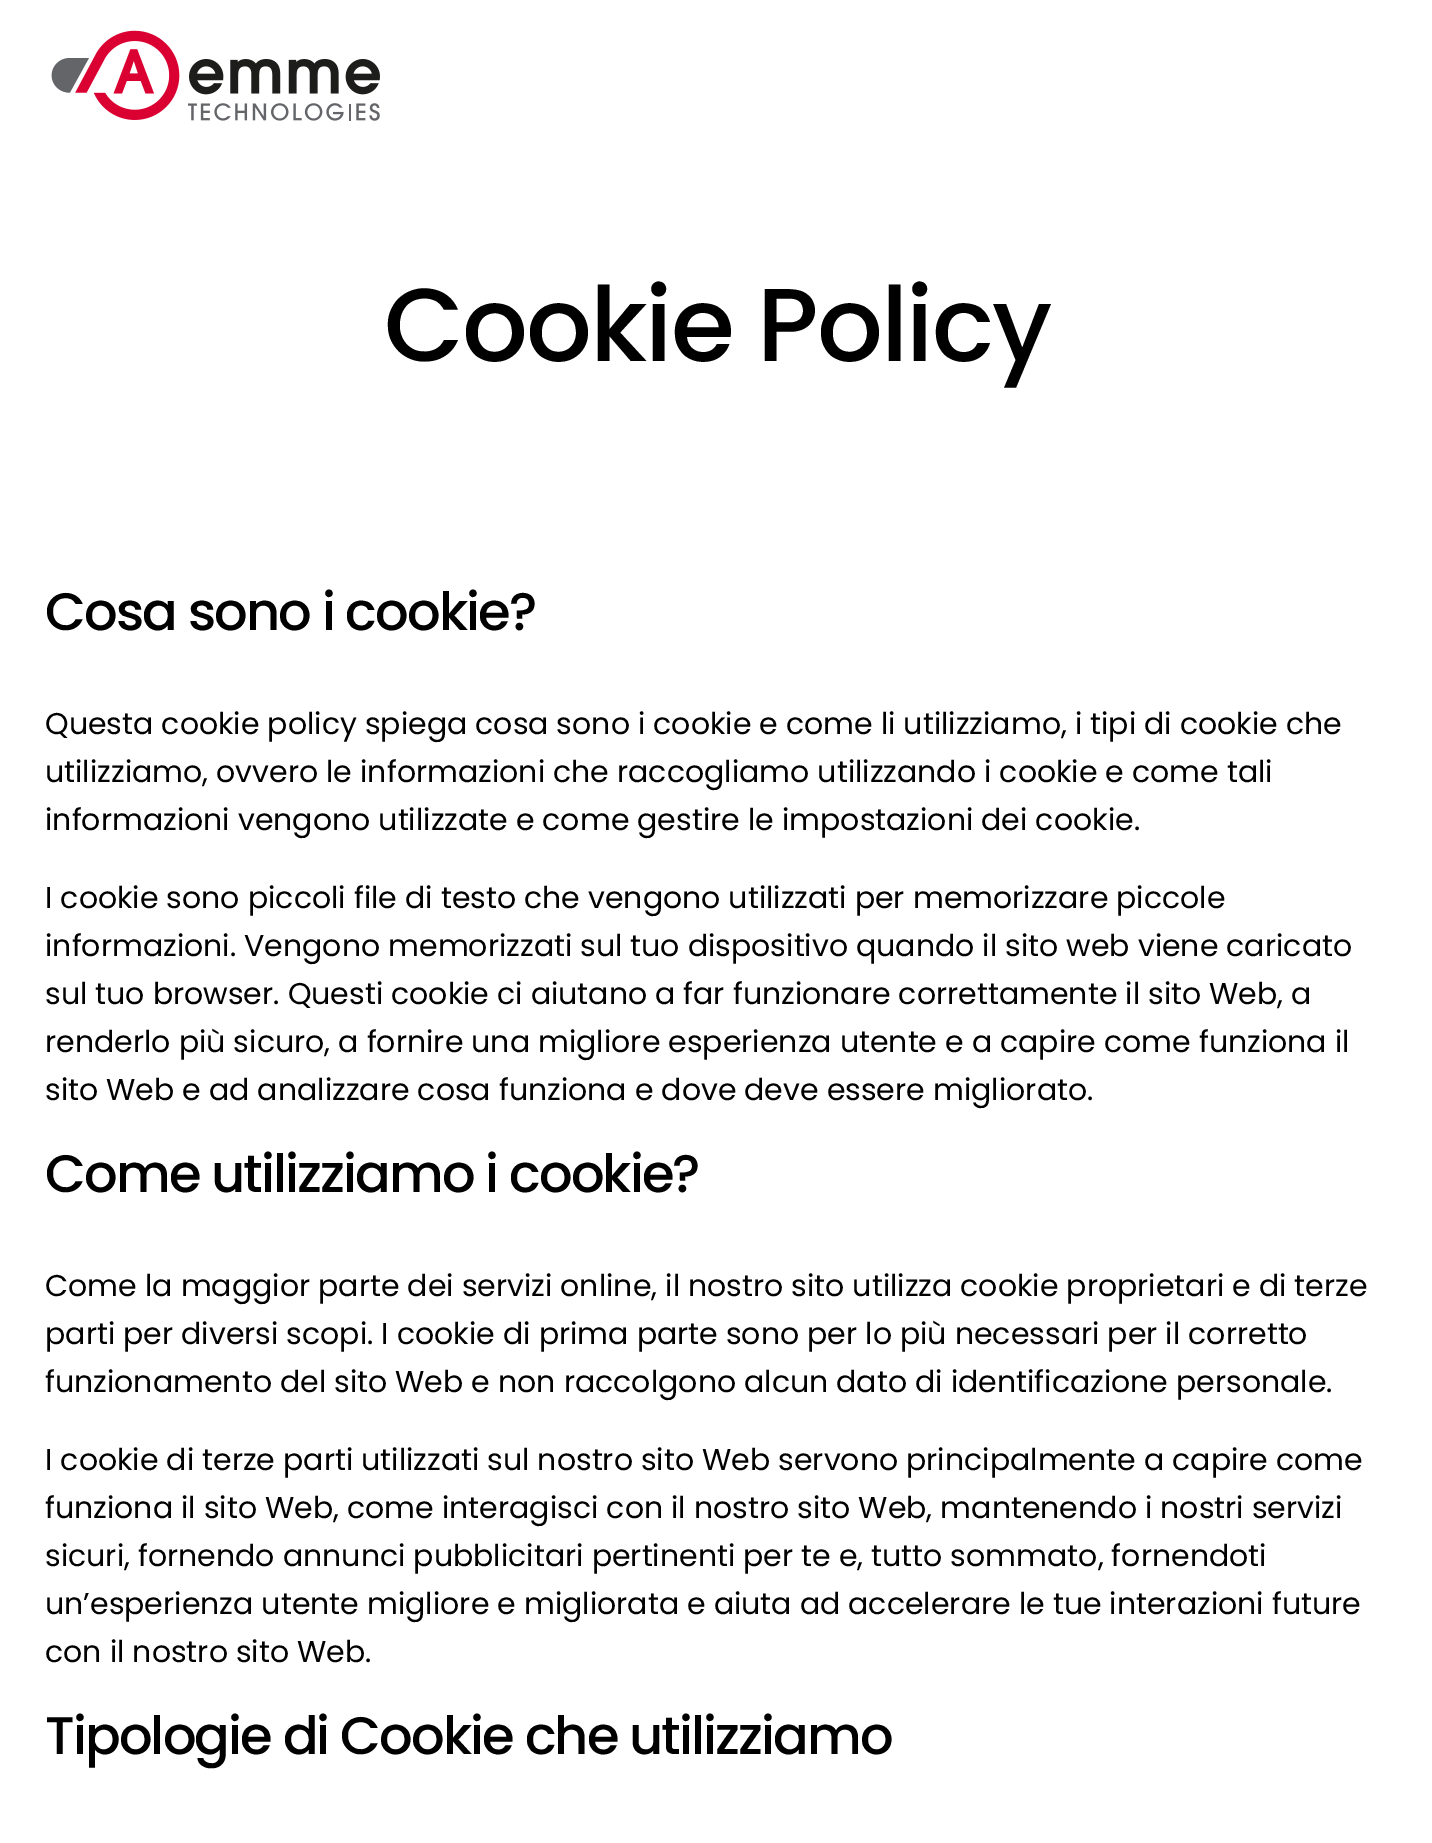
%!PS-Adobe-3.0
%%BoundingBox: 0 0 1432 1843
%%LanguageLevel: 3
%%Pages: 1
%%EndComments
%%BeginProlog
/setink { 3 { 255 div 3 1 roll } repeat setrgbcolor } def
/usefont { [ exch dup neg 0 0 3 -1 roll 0 0 ] selectfont } def
/drawtext { setink usefont moveto show } def
/fillbox { setink rectfill } def
/drawimage { 5 dict begin { /h /w /y /x /name } { exch def } forall
  gsave x y translate w h scale
  w h 8 [w 0 0 h 0 0] name (r) file false 3 colorimage grestore end } def
%%EndProlog
%%BeginSetup
<< /PageSize [1432 1843] >> setpagedevice
%%EndSetup
%%Page: 1 1
0 1843 translate 1 -1 scale
4 setmiterlimit
0 0 1432 1843 255 255 255 fillbox
(assets/img1.rgb) 51 30 329 91 drawimage
/Poppins-Medium 103.5 usefont
0 0 0 setink
384 361 moveto -2 0 (Cookie Policy) ashow
/Poppins-Medium 52.75 usefont
45 630 moveto -1.9 0 (Cosa sono i cookie?) ashow
(Questa cookie policy spiega cosa sono i cookie e come li utilizziamo, i tipi di cookie che) 45 734 /Poppins-Regular 30 0 0 0 drawtext
(utilizziamo, ovvero le informazioni che raccogliamo utilizzando i cookie e come tali) 45 782 /Poppins-Regular 30 0 0 0 drawtext
(informazioni vengono utilizzate e come gestire le impostazioni dei cookie.) 45 830 /Poppins-Regular 30 0 0 0 drawtext
(I cookie sono piccoli file di testo che vengono utilizzati per memorizzare piccole) 45 908 /Poppins-Regular 30 0 0 0 drawtext
(informazioni. Vengono memorizzati sul tuo dispositivo quando il sito web viene caricato) 45 956 /Poppins-Regular 30 0 0 0 drawtext
(sul tuo browser. Questi cookie ci aiutano a far funzionare correttamente il sito Web, a) 45 1004 /Poppins-Regular 30 0 0 0 drawtext
(renderlo più sicuro, a fornire una migliore esperienza utente e a capire come funziona il) 45 1052 /Poppins-Regular 30 0 0 0 drawtext
(sito Web e ad analizzare cosa funziona e dove deve essere migliorato.) 45 1100 /Poppins-Regular 30 0 0 0 drawtext
/Poppins-Medium 52.75 usefont
45 1192 moveto -1.9 0 (Come utilizziamo i cookie?) ashow
(Come la maggior parte dei servizi online, il nostro sito utilizza cookie proprietari e di terze) 45 1296 /Poppins-Regular 30 0 0 0 drawtext
(parti per diversi scopi. I cookie di prima parte sono per lo più necessari per il corretto) 45 1344 /Poppins-Regular 30 0 0 0 drawtext
(funzionamento del sito Web e non raccolgono alcun dato di identificazione personale.) 45 1392 /Poppins-Regular 30 0 0 0 drawtext
(I cookie di terze parti utilizzati sul nostro sito Web servono principalmente a capire come) 45 1470 /Poppins-Regular 30 0 0 0 drawtext
(funziona il sito Web, come interagisci con il nostro sito Web, mantenendo i nostri servizi) 45 1518 /Poppins-Regular 30 0 0 0 drawtext
(sicuri, fornendo annunci pubblicitari pertinenti per te e, tutto sommato, fornendoti) 45 1566 /Poppins-Regular 30 0 0 0 drawtext
(un’esperienza utente migliore e migliorata e aiuta ad accelerare le tue interazioni future) 45 1614 /Poppins-Regular 30 0 0 0 drawtext
(con il nostro sito Web.) 45 1662 /Poppins-Regular 30 0 0 0 drawtext
/Poppins-Medium 52.75 usefont
45 1754 moveto -1.9 0 (Tipologie di Cookie che utilizziamo) ashow
showpage
%%EOF
